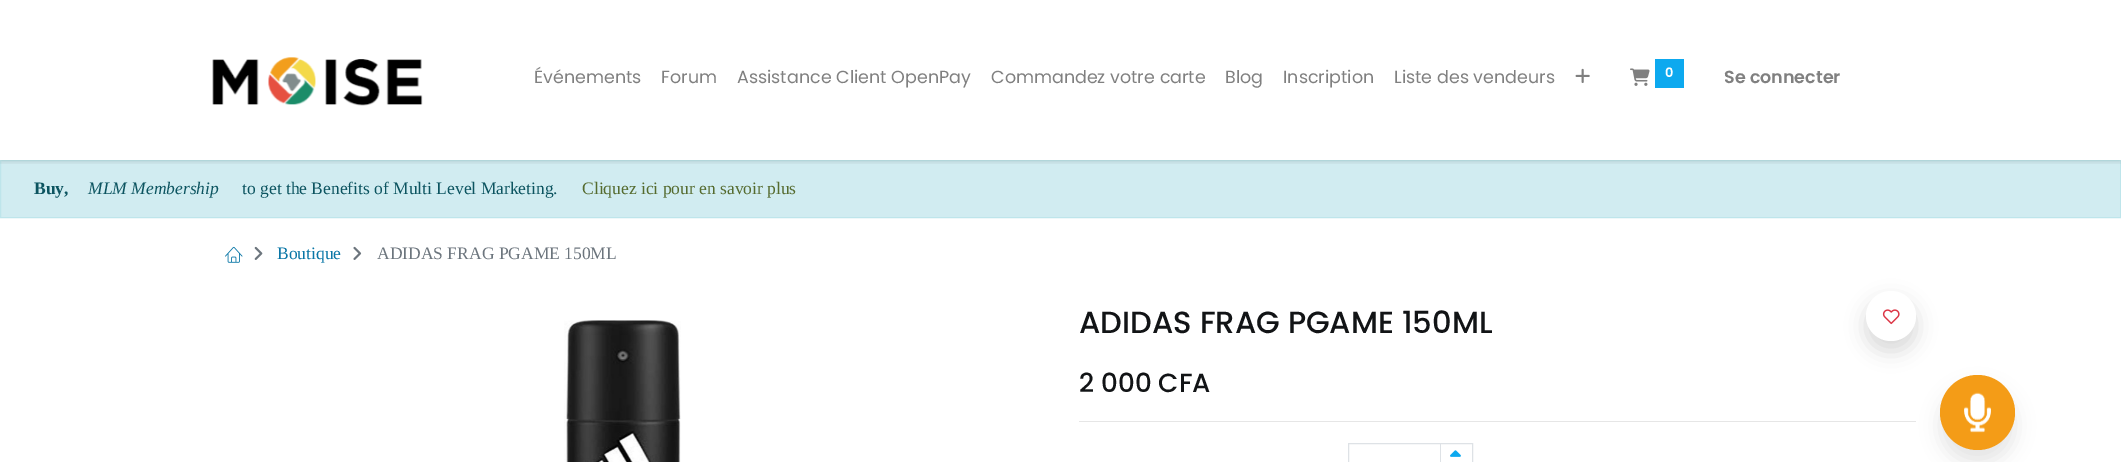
%!PS-Adobe-3.0
%%BoundingBox: 0 0 2121 462
%%LanguageLevel: 3
%%Pages: 1
%%EndComments
%%BeginProlog
/setink { 3 { 255 div 3 1 roll } repeat setrgbcolor } def
/usefont { [ exch dup neg 0 0 3 -1 roll 0 0 ] selectfont } def
/drawtext { setink usefont moveto show } def
/fillbox { setink rectfill } def
/setalpha { dup .setfillconstantalpha .setstrokeconstantalpha } def
/disc { newpath 0 360 arc closepath } def
/rrect { 5 dict begin { /r /h /w /y /x } { exch def } forall
  x r add y moveto x w add y 2 copy h add r arct x w add y h add x 1 index r arct
  x y h add x y r arct x y 2 copy exch w add exch r arct closepath end } def
/softshadow { 12 dict begin { /a /b /q /h /w /y /x } { exch def } forall gsave /was 0 def
  9 -2 -9 { dup b mul 4 div /e exch def 1 sub .425 mul 2.718 exch exp 1 add a .99 .min exch div /now exch def
    1 1 now sub 1 was sub div sub setalpha /was now def
    w h .min e 2 mul add 0 gt { x e sub y e sub w e 2 mul add h e 2 mul add
      q e add b .6 mul add w h .min 2 div e add .min 0 .max rrect fill } if } for grestore end } def
/drawimage { 5 dict begin { /h /w /y /x /name } { exch def } forall
  gsave x y translate w h scale
  w h 8 [w 0 0 h 0 0] name (r) file false 3 colorimage grestore end } def
%%EndProlog
%%BeginSetup
<< /PageSize [2121 462] /PageUsesTransparency true >> setpagedevice
%%EndSetup
%%Page: 1 1
0 .pushpdf14devicefilter
0 462 translate 1 -1 scale
4 setmiterlimit
0 0 2121 462 255 255 255 fillbox
209 236 241 setink
0.5 160.5 moveto 2120.5 160.5 lineto 2120.5 217.5 lineto 0.5 217.5 lineto closepath gsave fill grestore
190 229 235 setink
stroke
gsave
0 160 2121 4 rectclip
0 0 0 setink
0 3 2121 160 0 2.5 0.07 softshadow
grestore
(assets/img1.rgb) 212 57 211 49 drawimage
(Événements) 534 83 /Poppins-Regular 17.5 128 128 128 drawtext
(Forum) 661 83 /Poppins-Regular 17.5 128 128 128 drawtext
(Assistance Client OpenPay) 737 83 /Poppins-Regular 17.5 128 128 128 drawtext
(Commandez votre carte) 991 83 /Poppins-Regular 17.5 128 128 128 drawtext
(Blog) 1225 83 /Poppins-Regular 17.5 128 128 128 drawtext
(Inscription) 1283 83 /Poppins-Regular 17.5 128 128 128 drawtext
(Liste des vendeurs) 1394 83 /Poppins-Regular 17.5 128 128 128 drawtext
(assets/img2.rgb) 1575 68 15 15 drawimage
(assets/img3.rgb) 1630 68 20 18 drawimage
1655 59 29 29 13 169 239 fillbox
(0) 1665 77 /Poppins-SemiBold 13 255 255 255 drawtext
(Se connecter) 1724 83 /Poppins-SemiBold 17.5 128 128 128 drawtext
(Buy,) 34 194 /LiberationSerif-Bold 17.5 12 84 96 drawtext
(MLM Membership) 88 194 /LiberationSerif-Italic 17.5 12 84 96 drawtext
(to get the Benefits of Multi Level Marketing.) 242 194 /LiberationSerif-Regular 17.5 12 84 96 drawtext
(Cliquez ici pour en savoir plus) 582 194 /LiberationSerif-Regular 17.5 85 107 47 drawtext
(assets/img4.rgb) 225 246 18 17 drawimage
(assets/img5.rgb) 254 246 9 14 drawimage
(Boutique) 277 259 /LiberationSerif-Regular 17.5 9 118 166 drawtext
(assets/img6.rgb) 353 246 9 14 drawimage
(ADIDAS FRAG PGAME 150ML) 377 259 /LiberationSerif-Regular 17.5 108 117 125 drawtext
(assets/img7.rgb) 564 320 117 142 drawimage
(ADIDAS FRAG PGAME 150ML) 1079 333 /Poppins-Medium 30.6 18 20 22 drawtext
(2 000 CFA) 1079 392 /Poppins-Medium 26.25 18 20 22 drawtext
0 0 0 setink
1866 301 50 50 25 10 0.15 softshadow
255 255 255 setink
1891 316 25 disc fill
(assets/img8.rgb) 1882 309 18 16 drawimage
1079 421 837 1 230 230 230 fillbox
222 226 230 setink
1348.5 443.5 124 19 rectstroke
1440 444 1 18 222 226 230 fillbox
(assets/img9.rgb) 1450 450 11 7 drawimage
0 0 0 setink
1940 388 75 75 37.5 9.5 0.1 softshadow
244 156 23 setink
1977.5 412.5 37.5 disc fill
(assets/img10.rgb) 1964 392 27 41 drawimage
.poppdf14devicefilter showpage
%%EOF
